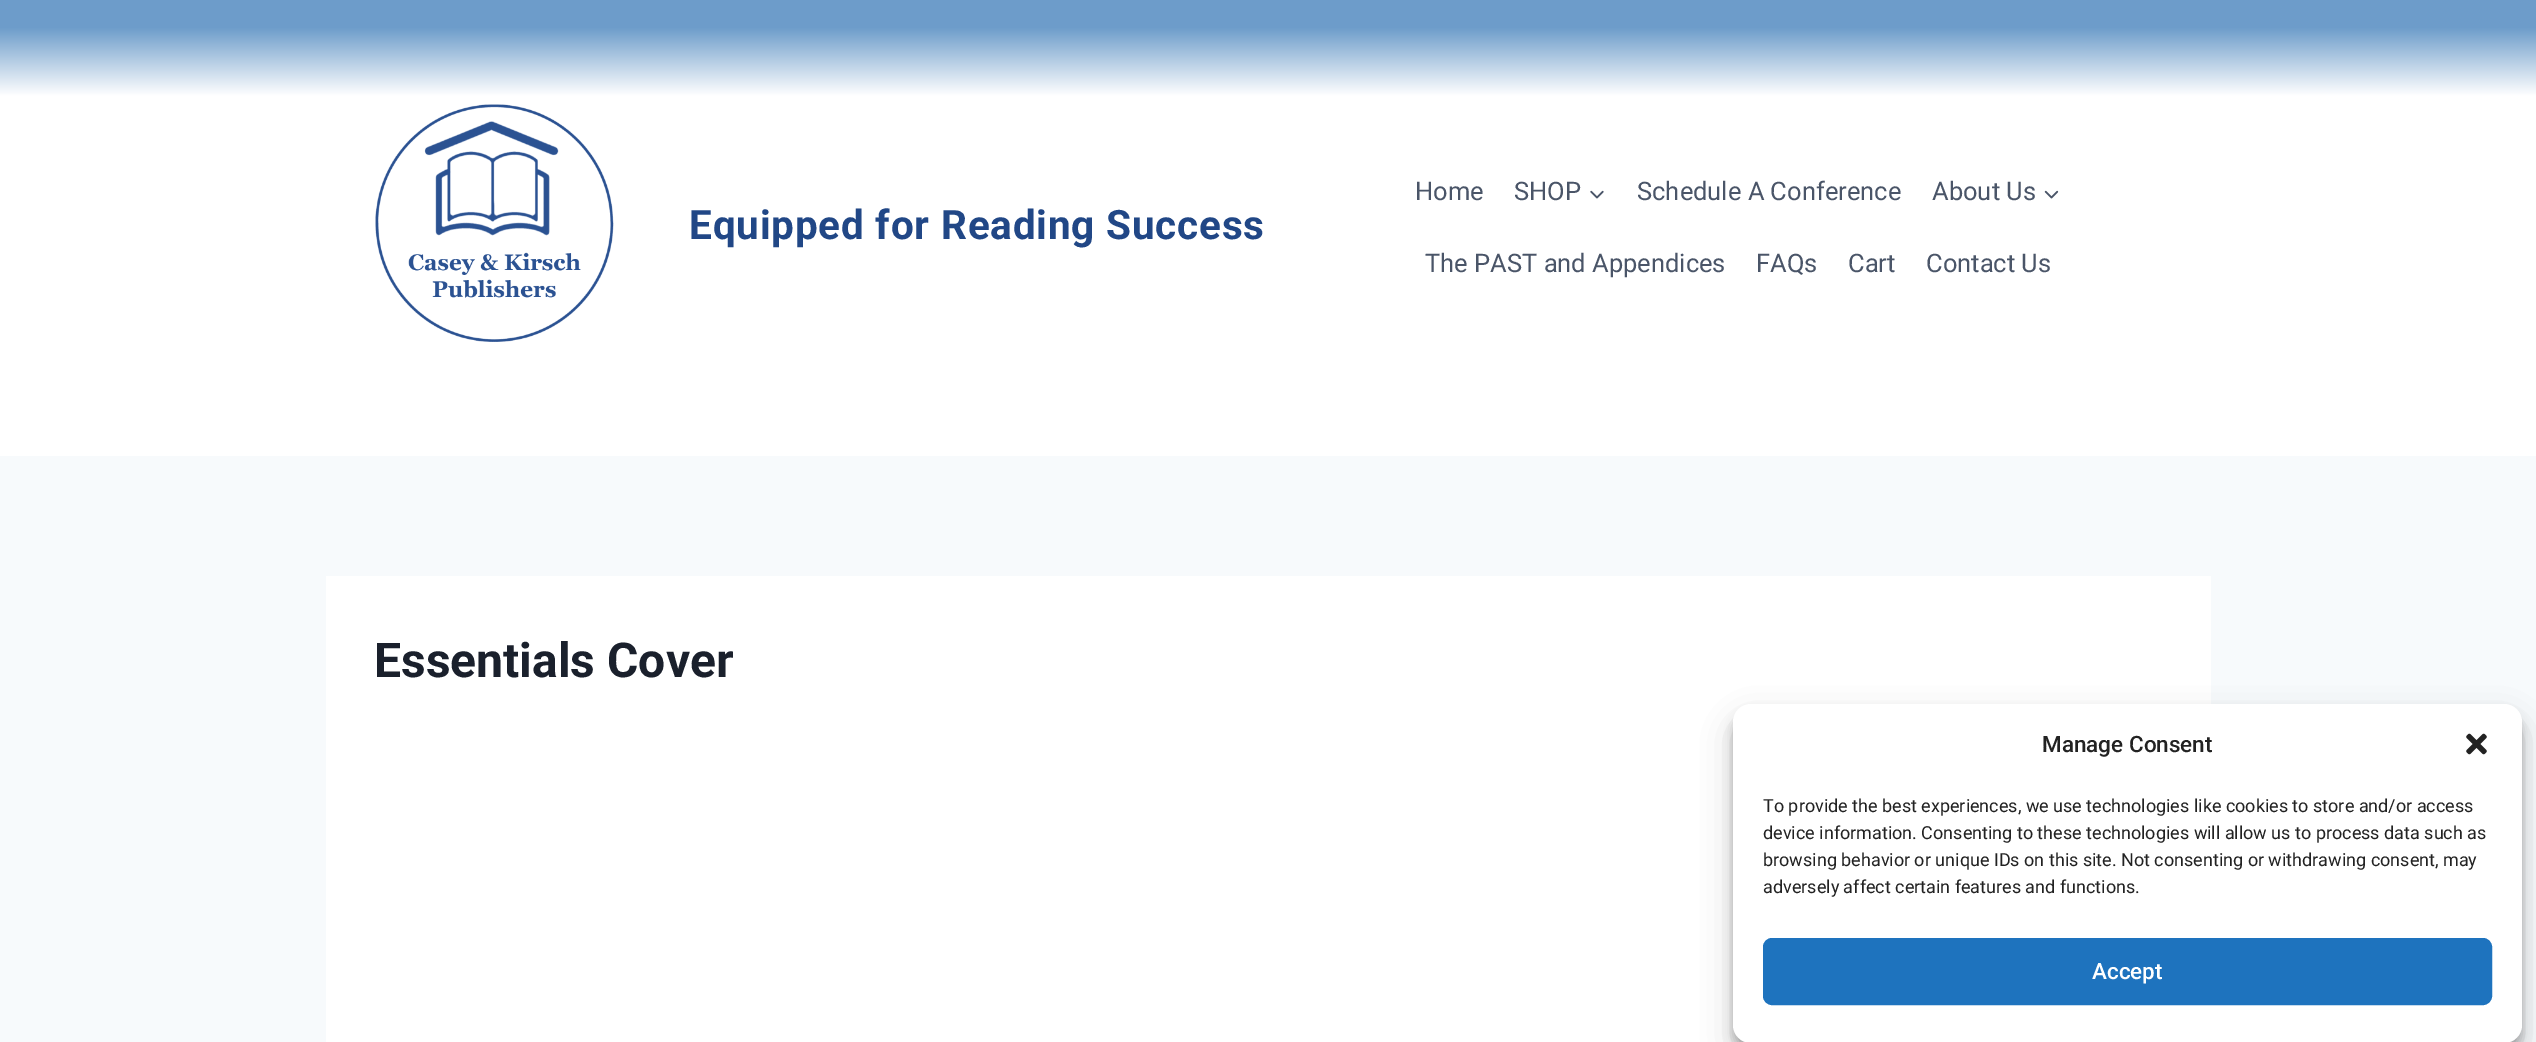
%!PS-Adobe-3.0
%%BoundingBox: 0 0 2536 1042
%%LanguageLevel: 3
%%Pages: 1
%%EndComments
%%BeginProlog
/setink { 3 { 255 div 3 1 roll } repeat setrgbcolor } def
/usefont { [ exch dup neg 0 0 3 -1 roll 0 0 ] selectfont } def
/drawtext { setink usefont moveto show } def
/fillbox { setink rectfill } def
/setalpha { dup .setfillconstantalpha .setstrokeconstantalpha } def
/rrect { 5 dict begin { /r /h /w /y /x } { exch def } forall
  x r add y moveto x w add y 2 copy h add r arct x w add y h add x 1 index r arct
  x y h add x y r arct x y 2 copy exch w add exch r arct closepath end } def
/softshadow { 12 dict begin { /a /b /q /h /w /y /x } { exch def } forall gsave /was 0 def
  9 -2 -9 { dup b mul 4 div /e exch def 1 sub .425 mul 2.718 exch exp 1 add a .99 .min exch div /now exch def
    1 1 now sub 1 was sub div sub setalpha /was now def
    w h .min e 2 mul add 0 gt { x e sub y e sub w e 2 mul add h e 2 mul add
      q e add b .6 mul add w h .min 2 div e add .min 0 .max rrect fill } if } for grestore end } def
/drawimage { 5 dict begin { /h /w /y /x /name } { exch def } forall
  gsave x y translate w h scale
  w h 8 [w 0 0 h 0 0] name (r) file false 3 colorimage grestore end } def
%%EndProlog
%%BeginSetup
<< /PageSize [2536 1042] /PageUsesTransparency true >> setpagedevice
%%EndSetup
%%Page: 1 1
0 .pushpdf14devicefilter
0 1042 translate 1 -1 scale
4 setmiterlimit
0 0 2536 1042 247 250 252 fillbox
gsave 0 0 moveto 2536 0 lineto 2536 456 lineto 0 456 lineto closepath clip newpath
<< /ShadingType 2 /ColorSpace /DeviceRGB /Coords [1268 0 1268 456] /Extend [true true] /Function << /FunctionType 3 /Domain [0 1] /Functions [<< /FunctionType 2 /Domain [0 1] /C0 [0.427 0.612 0.792] /C1 [0.427 0.612 0.792] /N 1 >> << /FunctionType 2 /Domain [0 1] /C0 [0.427 0.612 0.792] /C1 [1 1 1] /N 1 >> << /FunctionType 2 /Domain [0 1] /C0 [1 1 1] /C1 [1 1 1] /N 1 >>] /Bounds [0.06 0.21] /Encode [0 1 0 1 0 1] >> >> shfill grestore
(assets/img1.rgb) 375 104 239 238 drawimage
/Roboto-Bold 40.5 usefont
33 71 134 setink
689 239 moveto 0.8 0 (Equipped for Reading Success) ashow
(Home) 1415 200 /Roboto-Regular 25.5 74 85 104 drawtext
(SHOP) 1514 200 /Roboto-Regular 25.5 74 85 104 drawtext
(assets/img2.rgb) 1590 190 14 9 drawimage
(Schedule A Conference) 1637 200 /Roboto-Regular 25.5 74 85 104 drawtext
(About Us) 1932 200 /Roboto-Regular 25.5 74 85 104 drawtext
(assets/img3.rgb) 2044 190 15 9 drawimage
(The PAST and Appendices) 1425 272 /Roboto-Regular 25.5 74 85 104 drawtext
(FAQs) 1756 272 /Roboto-Regular 25.5 74 85 104 drawtext
(Cart) 1848 272 /Roboto-Regular 25.5 74 85 104 drawtext
(Contact Us) 1926 272 /Roboto-Regular 25.5 74 85 104 drawtext
326 576 1885 466 255 255 255 fillbox
(Essentials Cover) 374 677 /Roboto-Bold 48 26 32 44 drawtext
0 0 0 setink
1733 713 789 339 18 4.5 0.23 softshadow
1733 719 789 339 18 15 0.19 softshadow
255 255 255 setink
1733 704 789 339 18 rrect fill
(Manage Consent) 2042 752 /Roboto-Medium 22.5 34 34 34 drawtext
(assets/img4.rgb) 2466 733 21 22 drawimage
(To provide the best experiences, we use technologies like cookies to store and/or access) 1763 812 /Roboto-Regular 18 34 34 34 drawtext
(device information. Consenting to these technologies will allow us to process data such as) 1763 839 /Roboto-Regular 18 34 34 34 drawtext
(browsing behavior or unique IDs on this site. Not consenting or withdrawing consent, may) 1763 866 /Roboto-Regular 18 34 34 34 drawtext
(adversely affect certain features and functions.) 1763 893 /Roboto-Regular 18 34 34 34 drawtext
30 115 190 setink
1764 939 727 65 8 rrect gsave fill grestore
2 setlinewidth
stroke
(Accept) 2092 979 /Roboto-Medium 22.5 255 255 255 drawtext
.poppdf14devicefilter showpage
%%EOF
